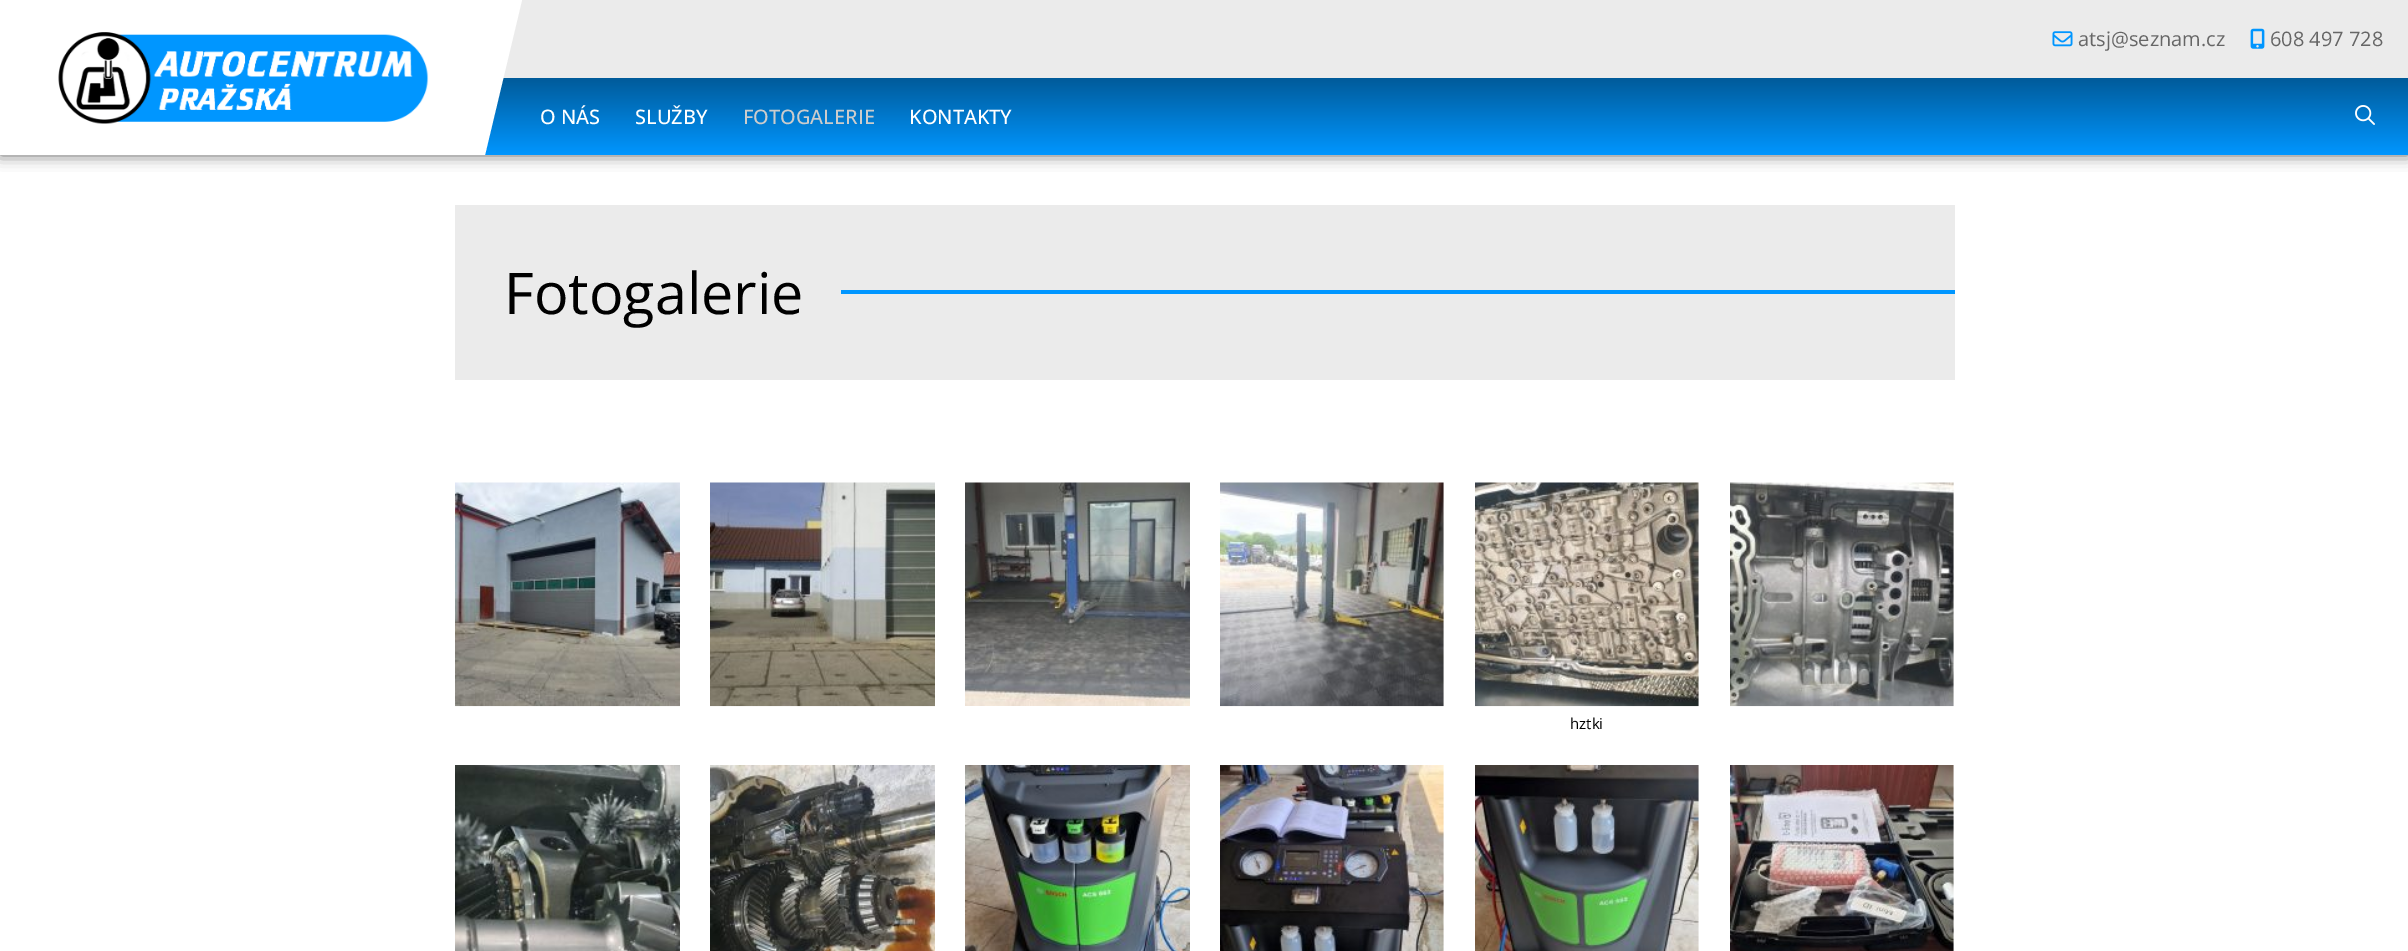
%!PS-Adobe-3.0
%%BoundingBox: 0 0 2408 951
%%LanguageLevel: 3
%%Pages: 1
%%EndComments
%%BeginProlog
/setink { 3 { 255 div 3 1 roll } repeat setrgbcolor } def
/usefont { [ exch dup neg 0 0 3 -1 roll 0 0 ] selectfont } def
/drawtext { setink usefont moveto show } def
/fillbox { setink rectfill } def
/setalpha { dup .setfillconstantalpha .setstrokeconstantalpha } def
/rrect { 5 dict begin { /r /h /w /y /x } { exch def } forall
  x r add y moveto x w add y 2 copy h add r arct x w add y h add x 1 index r arct
  x y h add x y r arct x y 2 copy exch w add exch r arct closepath end } def
/softshadow { 12 dict begin { /a /b /q /h /w /y /x } { exch def } forall gsave /was 0 def
  9 -2 -9 { dup b mul 4 div /e exch def 1 sub .425 mul 2.718 exch exp 1 add a .99 .min exch div /now exch def
    1 1 now sub 1 was sub div sub setalpha /was now def
    w h .min e 2 mul add 0 gt { x e sub y e sub w e 2 mul add h e 2 mul add
      q e add b .6 mul add w h .min 2 div e add .min 0 .max rrect fill } if } for grestore end } def
/drawimage { 5 dict begin { /h /w /y /x /name } { exch def } forall
  gsave x y translate w h scale
  w h 8 [w 0 0 h 0 0] name (r) file false 3 colorimage grestore end } def
%%EndProlog
%%BeginSetup
<< /PageSize [2408 951] /PageUsesTransparency true >> setpagedevice
%%EndSetup
%%Page: 1 1
0 .pushpdf14devicefilter
0 951 translate 1 -1 scale
4 setmiterlimit
0 0 2408 951 255 255 255 fillbox
0 0 0 setink
0 0 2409 155 0 7.5 0.6 softshadow
503 0 1905 78 235 235 235 fillbox
0 0 485 155 255 255 255 fillbox
(assets/img1.rgb) 58 32 371 92 drawimage
gsave 485 78 moveto 2408 78 lineto 2408 155 lineto 485 155 lineto closepath clip newpath
<< /ShadingType 2 /ColorSpace /DeviceRGB /Coords [1447 77 1447 155] /Extend [true true] /Function << /FunctionType 2 /Domain [0 1] /C0 [0 0.353 0.6] /C1 [0 0.588 1] /N 1 >> >> shfill grestore
485 0 moveto 485 155 lineto 522 0 lineto closepath fill
(assets/img2.rgb) 2052 31 21 16 drawimage
(atsj@seznam.cz) 2078 46 /OpenSans-Regular 20 102 102 102 drawtext
(assets/img3.rgb) 2250 28 15 21 drawimage
(608 497 728) 2270 46 /OpenSans-Regular 20 102 102 102 drawtext
(O NÁS) 540 124 /OpenSans-Medium 20 255 255 255 drawtext
(SLUŽBY) 635 124 /OpenSans-Medium 20 255 255 255 drawtext
(FOTOGALERIE) 743 124 /OpenSans-Medium 20 204 204 204 drawtext
(KONTAKTY) 909 124 /OpenSans-Medium 20 255 255 255 drawtext
(assets/img4.rgb) 2355 105 20 20 drawimage
455 205 1500 175 235 235 235 fillbox
(Fotogalerie) 504 314 /OpenSans-Regular 57.5 0 0 0 drawtext
841 290 1114 4 0 150 255 fillbox
(assets/img5.rgb) 455 482 225 225 drawimage
(assets/img6.rgb) 710 482 225 225 drawimage
(assets/img7.rgb) 965 482 225 224 drawimage
(assets/img8.rgb) 1220 482 224 225 drawimage
(assets/img9.rgb) 1730 482 224 225 drawimage
(assets/img10.rgb) 1475 482 224 225 drawimage
(hztki) 1570 729 /OpenSans-Regular 15 0 0 0 drawtext
(assets/img11.rgb) 455 765 225 186 drawimage
(assets/img12.rgb) 710 765 225 186 drawimage
(assets/img13.rgb) 965 765 225 186 drawimage
(assets/img14.rgb) 1220 765 224 186 drawimage
(assets/img15.rgb) 1475 765 224 186 drawimage
(assets/img16.rgb) 1730 765 224 186 drawimage
.poppdf14devicefilter showpage
%%EOF
